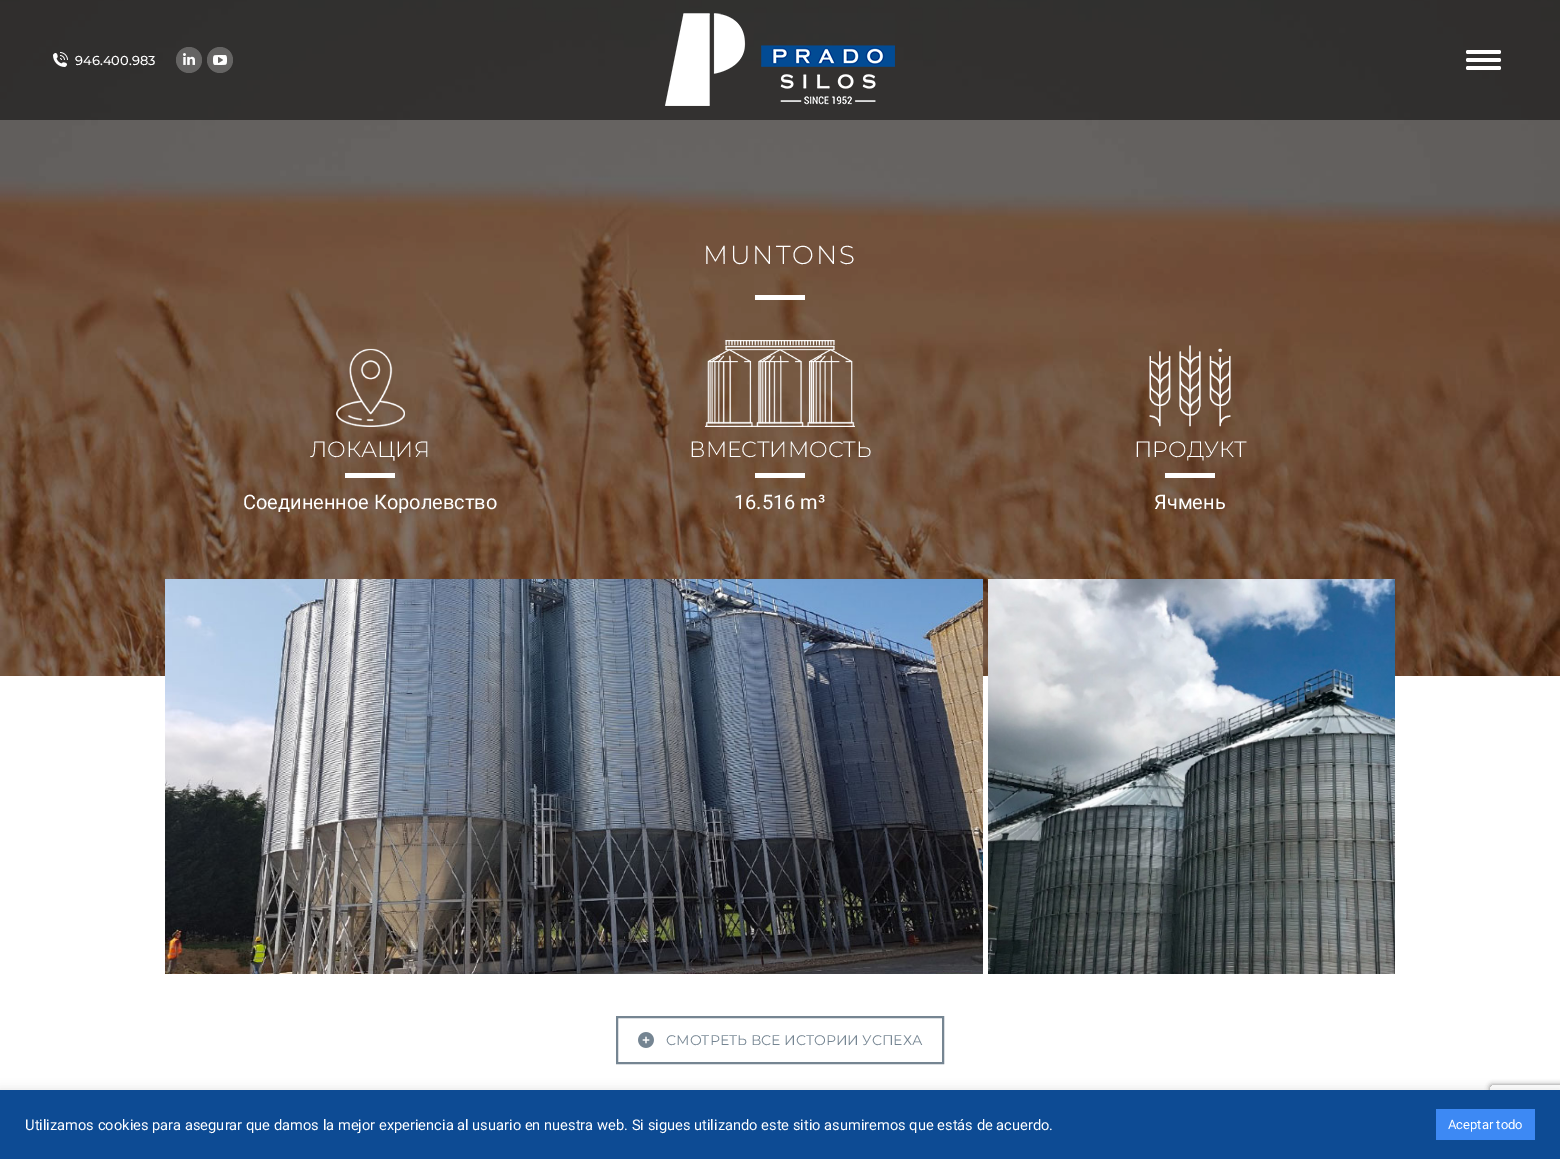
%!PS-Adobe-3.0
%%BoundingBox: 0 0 1560 1159
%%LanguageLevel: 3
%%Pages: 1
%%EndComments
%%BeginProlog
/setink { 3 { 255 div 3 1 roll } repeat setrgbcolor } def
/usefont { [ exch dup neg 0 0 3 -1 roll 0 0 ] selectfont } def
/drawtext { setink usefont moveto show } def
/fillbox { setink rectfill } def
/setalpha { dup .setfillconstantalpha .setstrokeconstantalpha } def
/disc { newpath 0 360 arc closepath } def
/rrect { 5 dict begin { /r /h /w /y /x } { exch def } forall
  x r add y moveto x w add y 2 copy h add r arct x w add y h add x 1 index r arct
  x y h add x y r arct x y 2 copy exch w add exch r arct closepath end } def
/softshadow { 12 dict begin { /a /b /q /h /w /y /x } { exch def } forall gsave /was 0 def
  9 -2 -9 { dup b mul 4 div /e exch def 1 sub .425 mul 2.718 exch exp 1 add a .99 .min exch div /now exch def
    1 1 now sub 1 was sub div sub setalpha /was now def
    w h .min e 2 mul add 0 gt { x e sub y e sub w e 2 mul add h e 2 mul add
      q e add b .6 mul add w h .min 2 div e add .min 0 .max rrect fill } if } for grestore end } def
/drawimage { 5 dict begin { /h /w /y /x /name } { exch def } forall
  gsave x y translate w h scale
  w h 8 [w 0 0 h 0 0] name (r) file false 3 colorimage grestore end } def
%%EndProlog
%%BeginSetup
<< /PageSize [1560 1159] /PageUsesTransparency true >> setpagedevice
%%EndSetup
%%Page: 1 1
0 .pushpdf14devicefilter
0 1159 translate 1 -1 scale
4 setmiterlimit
0 0 1560 1159 255 255 255 fillbox
(assets/img5.rgb) 0 0 1560 676 drawimage
0.5 setalpha
0 0 1560 120 0 0 0 fillbox
1 setalpha
(assets/img1.rgb) 53 52 15 15 drawimage
(946.400.983) 75 65 /Montserrat-Medium 13 255 255 255 drawtext
101 100 99 setink
189 60 13 disc fill
(assets/img2.rgb) 183 53 12 12 drawimage
220 60 13 disc fill
(assets/img3.rgb) 213 55 14 10 drawimage
(assets/img4.rgb) 665 13 230 93 drawimage
255 255 255 setink
1466 50 35 4 2 rrect fill
1466 58 35 4 2 rrect fill
1466 66 35 4 2 rrect fill
/Montserrat-Light 26 usefont
703 264 moveto 2 0 (MUNTONS) ashow
755 295 50 3 255 255 255 fillbox
802 295 3 5 255 255 255 fillbox
755 298 50 2 255 255 255 fillbox
(assets/img6.rgb) 336 348 69 79 drawimage
(ЛОКАЦИЯ) 310 457 /Montserrat-Light 22 255 255 255 drawtext
345 473 50 3 255 255 255 fillbox
392 473 3 5 255 255 255 fillbox
345 476 50 2 255 255 255 fillbox
(Соединенное Королевство) 243 509 /Roboto-Regular 20 255 255 255 drawtext
(assets/img7.rgb) 705 340 150 87 drawimage
(ВМЕСТИМОСТЬ) 689 457 /Montserrat-Light 22 255 255 255 drawtext
755 473 50 3 255 255 255 fillbox
802 473 3 5 255 255 255 fillbox
755 476 50 2 255 255 255 fillbox
(16.516 m³) 734 509 /Roboto-Regular 20 255 255 255 drawtext
(assets/img8.rgb) 1149 345 82 82 drawimage
(ПРОДУКТ) 1134 457 /Montserrat-Light 22 255 255 255 drawtext
1165 473 50 3 255 255 255 fillbox
1212 473 3 5 255 255 255 fillbox
1165 476 50 2 255 255 255 fillbox
(Ячмень) 1154 509 /Roboto-Regular 20 255 255 255 drawtext
(assets/img9.rgb) 165 579 818 395 drawimage
(assets/img10.rgb) 988 579 407 395 drawimage
117 133 146 setink
2 setlinewidth
617 1017 326 46 rectstroke
(assets/img11.rgb) 638 1032 16 16 drawimage
(СМОТРЕТЬ ВСЕ ИСТОРИИ УСПЕХА) 666 1045 /Montserrat-Regular 14 117 133 146 drawtext
gsave
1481 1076 moveto 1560 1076 lineto 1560 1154 lineto 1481 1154 lineto closepath 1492 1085 moveto 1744 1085 lineto 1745 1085 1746 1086 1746 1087 curveto 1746 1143 lineto 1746 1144 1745 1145 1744 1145 curveto 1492 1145 lineto 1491 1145 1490 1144 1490 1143 curveto 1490 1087 lineto 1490 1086 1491 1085 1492 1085 curveto closepath eoclip newpath
128 128 128 setink
1490 1085 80 60 2 2.5 1 softshadow
grestore
172 171 171 setink
0 1089 1560 69 0 5 0.3 softshadow
0 1090 1560 69 13 75 148 fillbox
(Utilizamos cookies para asegurar que damos la mejor experiencia al usuario en nuestra web. Si sigues utilizando este sitio asumiremos que estás de acuerdo.) 25 1130 /Roboto-Regular 14.67 255 255 255 drawtext
1436 1109 99 31 61 137 244 fillbox
(Aceptar todo) 1448 1129 /Roboto-Regular 13 255 255 255 drawtext
.poppdf14devicefilter showpage
%%EOF
